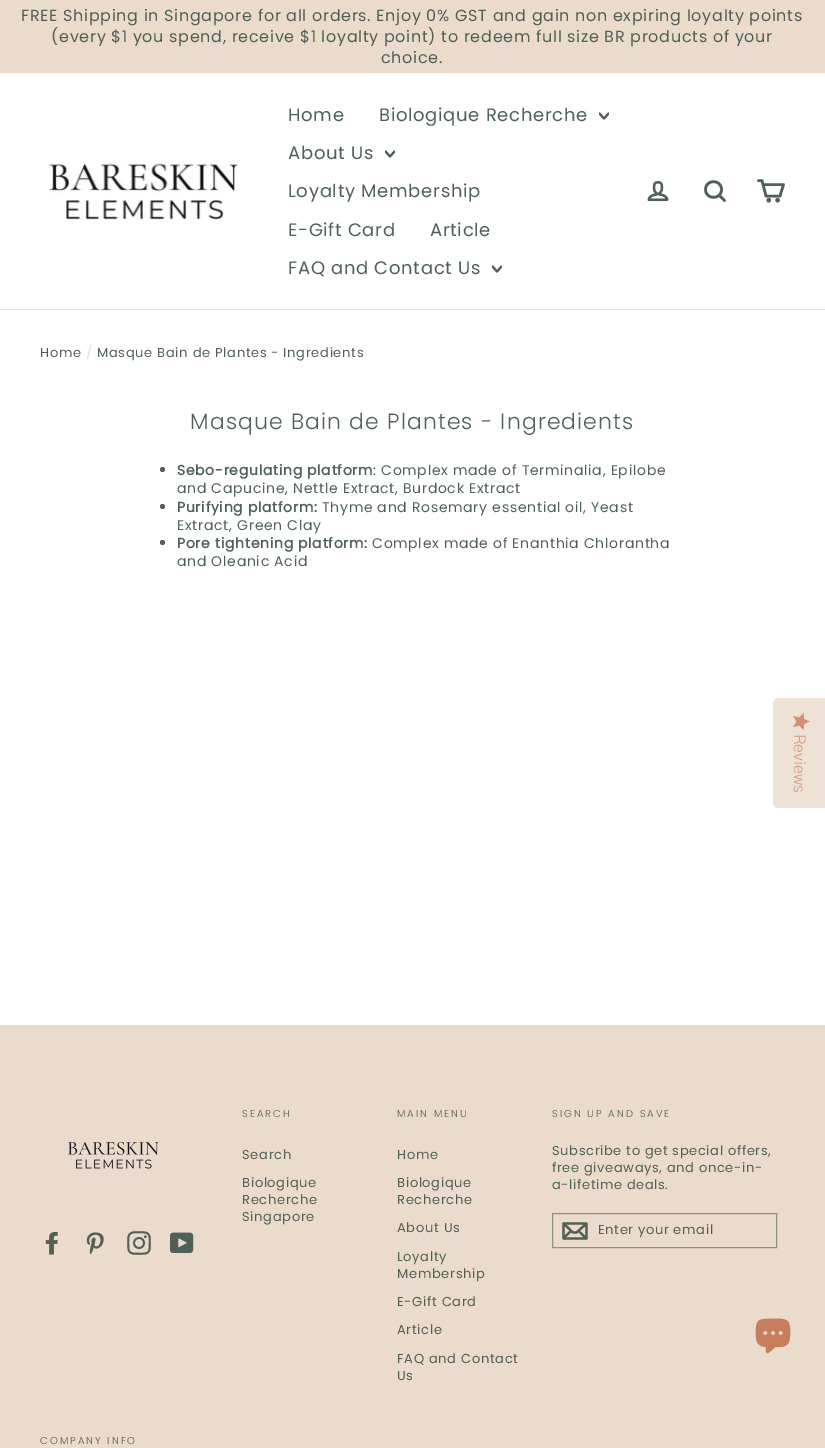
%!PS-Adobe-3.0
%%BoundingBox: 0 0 825 1448
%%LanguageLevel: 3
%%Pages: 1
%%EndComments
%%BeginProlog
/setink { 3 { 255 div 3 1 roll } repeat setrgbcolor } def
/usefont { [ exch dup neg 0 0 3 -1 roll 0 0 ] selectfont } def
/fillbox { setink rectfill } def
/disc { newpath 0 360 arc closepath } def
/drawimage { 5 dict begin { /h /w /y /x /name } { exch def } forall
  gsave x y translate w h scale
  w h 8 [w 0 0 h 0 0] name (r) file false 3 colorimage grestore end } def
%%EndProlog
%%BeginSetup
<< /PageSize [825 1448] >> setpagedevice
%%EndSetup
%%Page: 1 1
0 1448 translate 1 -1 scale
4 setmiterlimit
0 0 825 1448 255 255 255 fillbox
0 0 825 73 234 219 205 fillbox
/Poppins-Regular 16 usefont
80 96 86 setink
21 21 moveto 0.7 0 (FREE Shipping in Singapore for all orders. Enjoy 0% GST and gain non expiring loyalty points) ashow
51 42 moveto 0.7 0 (\(every $1 you spend, receive $1 loyalty point\) to redeem full size BR products of your) ashow
381 63 moveto 0.7 0 (choice.) ashow
0 309 825 1 234 219 205 fillbox
(assets/img1.rgb) 49 163 189 57 drawimage
/Poppins-Regular 18 usefont
80 96 86 setink
288 121 moveto 0.7 0 (Home) ashow
379 121 moveto 0.7 0 (Biologique Recherche) ashow
gsave
599 111 10 10 rectclip
2.1 setlinewidth
1 setlinecap
1 setlinejoin
599.5 113.5 moveto 604 118.5 lineto 608.5 113.5 lineto stroke
grestore
288 159 moveto 0.7 0 (About Us) ashow
gsave
385 149 10 10 rectclip
2.1 setlinewidth
1 setlinecap
1 setlinejoin
385.5 151.5 moveto 390 156.5 lineto 394.5 151.5 lineto stroke
grestore
288 197 moveto 0.7 0 (Loyalty Membership) ashow
288 236 moveto 0.7 0 (E-Gift Card) ashow
430 236 moveto 0.7 0 (Article) ashow
288 274 moveto 0.7 0 (FAQ and Contact Us) ashow
gsave
492 264 10 10 rectclip
2.1 setlinewidth
1 setlinecap
1 setlinejoin
492.5 266.5 moveto 497 271.5 lineto 501.5 266.5 lineto stroke
grestore
(assets/img2.rgb) 647 181 22 21 drawimage
2.6 setlinewidth
1 setlinecap
1 setlinejoin
721.5 189.5 moveto 721.5 200 705.5 200 705.5 189.5 curveto 705.5 179 721.5 179 721.5 189.5 curveto closepath 724.5 200.5 moveto 719.5 195.5 lineto stroke
763 184.5 moveto 783.5 184.5 lineto 780 196 lineto 766 196 lineto 762 180.5 lineto 758.5 180.5 lineto stroke
0 setlinecap
0 setlinejoin
768.8 200.2 0.9 disc stroke
777.6 200.2 0.9 disc gsave fill grestore
stroke
/Poppins-Regular 13 usefont
40 357 moveto 0.7 0 (Home) ashow
234 219 205 setink
86 357 moveto 0.7 0 (/) ashow
80 96 86 setink
97 357 moveto 0.7 0 (Masque Bain de Plantes - Ingredients) ashow
/Poppins-Light 22 usefont
190 429 moveto 1.1 0 (Masque Bain de Plantes - Ingredients) ashow
162.5 469.5 2.5 disc fill
/Poppins-Bold 14 usefont
177 475 moveto 0.7 0 (Sebo-regulating platform) ashow
/Poppins-Regular 14 usefont
373 475 moveto 0.7 0 (: Complex made of Terminalia, Epilobe) ashow
177 493 moveto 0.7 0 (and Capucine, Nettle Extract, Burdock Extract) ashow
162.5 506.5 2.5 disc fill
/Poppins-Bold 14 usefont
177 512 moveto 0.7 0 (Purifying platform:) ashow
/Poppins-Regular 14 usefont
322 512 moveto 0.7 0 (Thyme and Rosemary essential oil, Yeast) ashow
177 530 moveto 0.7 0 (Extract, Green Clay) ashow
162.5 542.5 2.5 disc fill
/Poppins-Bold 14 usefont
177 548 moveto 0.7 0 (Pore tightening platform:) ashow
/Poppins-Regular 14 usefont
372 548 moveto 0.7 0 (Complex made of Enanthia Chlorantha) ashow
177 566 moveto 0.7 0 (and Oleanic Acid) ashow
0 1025 825 423 234 219 205 fillbox
(assets/img3.rgb) 67 1141 92 28 drawimage
(assets/img4.rgb) 45 1231 13 24 drawimage
(assets/img5.rgb) 86 1232 18 23 drawimage
(assets/img6.rgb) 127 1231 24 24 drawimage
(assets/img7.rgb) 170 1232 24 21 drawimage
/Poppins-Light 10 usefont
80 96 86 setink
242 1117 moveto 2 0 (SEARCH) ashow
/Poppins-Regular 13 usefont
242 1159 moveto 0.7 0 (Search) ashow
242 1187 moveto 0.7 0 (Biologique) ashow
242 1204 moveto 0.7 0 (Recherche) ashow
242 1221 moveto 0.7 0 (Singapore) ashow
/Poppins-Light 10 usefont
397 1117 moveto 2 0 (MAIN MENU) ashow
/Poppins-Regular 13 usefont
397 1159 moveto 0.7 0 (Home) ashow
397 1187 moveto 0.7 0 (Biologique) ashow
397 1204 moveto 0.7 0 (Recherche) ashow
397 1232 moveto 0.7 0 (About Us) ashow
397 1261 moveto 0.7 0 (Loyalty) ashow
397 1278 moveto 0.7 0 (Membership) ashow
397 1306 moveto 0.7 0 (E-Gift Card) ashow
397 1334 moveto 0.7 0 (Article) ashow
397 1363 moveto 0.7 0 (FAQ and Contact) ashow
397 1380 moveto 0.7 0 (Us) ashow
/Poppins-Light 10 usefont
552 1117 moveto 2 0 (SIGN UP AND SAVE) ashow
/Poppins-Regular 13 usefont
552 1155 moveto 0.65 0 (Subscribe to get special offers,) ashow
552 1172 moveto 0.65 0 (free giveaways, and once-in-) ashow
552 1189 moveto 0.65 0 (a-lifetime deals.) ashow
142 145 134 setink
1 setlinewidth
552.5 1213.5 224 34 rectstroke
80 96 86 setink
2.2 setlinewidth
1 setlinecap
1 setlinejoin
586.5 1238.5 moveto 563.5 1238.5 lineto 563.5 1223.5 lineto 586.5 1223.5 lineto closepath 563.5 1223.5 moveto 573 1232.5 lineto 576.5 1232.5 lineto 586.5 1223.5 lineto 571 1231 moveto 563.5 1238 lineto 586.5 1238.5 moveto 578.5 1231 lineto stroke
598 1234 moveto 0.65 0 (Enter your email) ashow
/Poppins-Light 10 usefont
40 1444 moveto 2 0 (COMPANY INFO) ashow
238 226 215 setink
825 698 moveto 825 808 lineto 779 808 lineto 776 808 773 806 773 802 curveto 773 704 lineto 773 701 776 698 779 698 curveto closepath fill
(assets/img8.rgb) 793 712 17 19 drawimage
/GothicA1-Light 16 usefont
211 152 125 setink
gsave 794 734 translate 90 rotate 0 0 moveto (Reviews) show grestore
(assets/img9.rgb) 755 1318 36 36 drawimage
showpage
%%EOF
